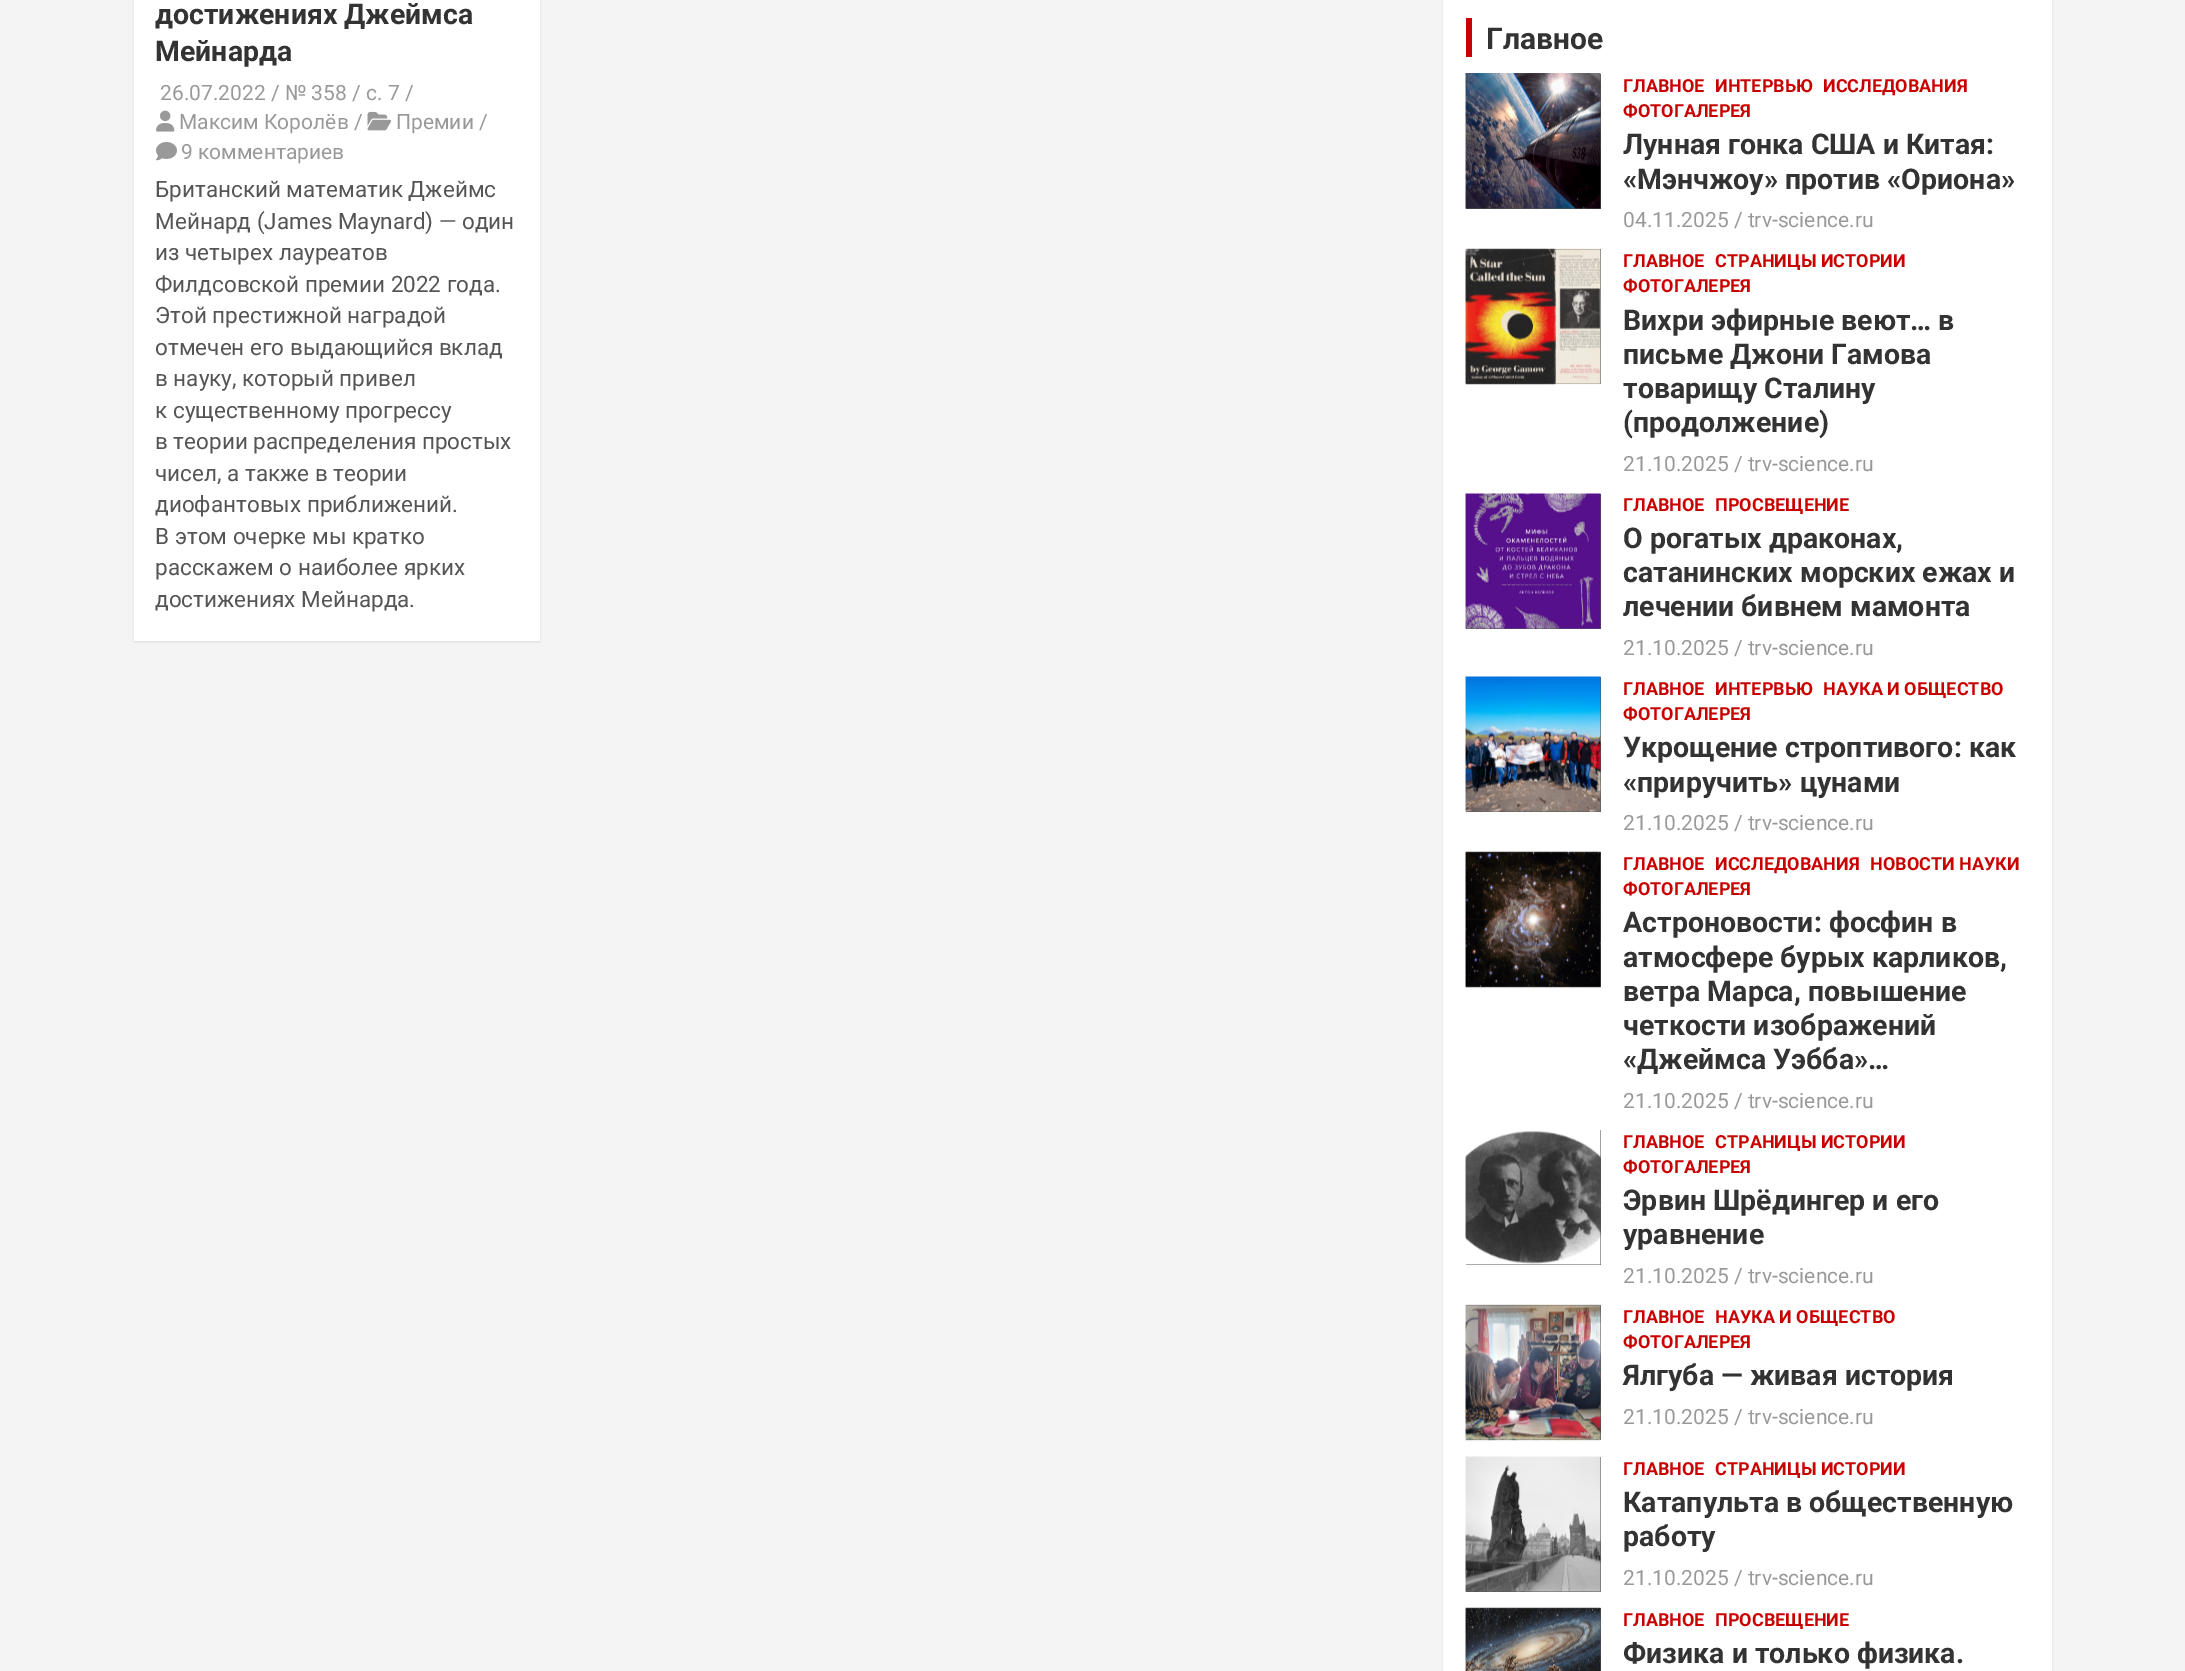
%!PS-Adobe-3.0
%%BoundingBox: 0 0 2185 1671
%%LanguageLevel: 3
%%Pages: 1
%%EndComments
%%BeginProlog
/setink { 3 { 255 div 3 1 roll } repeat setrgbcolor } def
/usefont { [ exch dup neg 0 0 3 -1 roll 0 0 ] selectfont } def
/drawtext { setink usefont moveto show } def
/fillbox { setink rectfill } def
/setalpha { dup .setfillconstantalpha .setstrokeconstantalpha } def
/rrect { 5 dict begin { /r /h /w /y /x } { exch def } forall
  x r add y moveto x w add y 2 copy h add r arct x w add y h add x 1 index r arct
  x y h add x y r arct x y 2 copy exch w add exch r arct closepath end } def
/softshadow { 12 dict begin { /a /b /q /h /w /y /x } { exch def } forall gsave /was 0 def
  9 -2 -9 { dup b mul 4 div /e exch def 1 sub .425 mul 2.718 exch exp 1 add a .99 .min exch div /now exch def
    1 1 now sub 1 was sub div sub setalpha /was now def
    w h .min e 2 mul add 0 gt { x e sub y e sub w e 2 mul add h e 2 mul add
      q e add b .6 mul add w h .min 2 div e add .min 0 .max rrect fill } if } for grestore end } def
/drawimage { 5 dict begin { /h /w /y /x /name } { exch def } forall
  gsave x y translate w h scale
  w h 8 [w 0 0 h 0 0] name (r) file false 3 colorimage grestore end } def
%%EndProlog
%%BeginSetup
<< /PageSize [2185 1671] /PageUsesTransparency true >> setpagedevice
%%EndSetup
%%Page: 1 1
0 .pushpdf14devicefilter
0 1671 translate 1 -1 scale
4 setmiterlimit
0 0 2185 1671 244 244 244 fillbox
0 0 0 setink
134 -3 406 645 0 1 0.1 softshadow
134 0 406 641 255 255 255 fillbox
(достижениях Джеймса) 155 24 /Roboto-Bold 28.5 51 51 51 drawtext
(Мейнарда) 155 61 /Roboto-Bold 28.5 51 51 51 drawtext
(26.07.2022 / № 358 / с. 7 /) 160 100 /Roboto-Regular 21 153 153 153 drawtext
(assets/img1.rgb) 156 110 19 22 drawimage
(Максим Королёв /) 179 129 /Roboto-Regular 21 153 153 153 drawtext
(assets/img2.rgb) 367 111 25 20 drawimage
(Премии /) 396 129 /Roboto-Regular 21 153 153 153 drawtext
(assets/img3.rgb) 156 142 21 19 drawimage
(9 комментариев) 181 159 /Roboto-Regular 21 153 153 153 drawtext
(Британский математик Джеймс) 155 197 /Roboto-Regular 22.5 85 85 85 drawtext
(Мейнард \(James Maynard\) — один) 155 229 /Roboto-Regular 22.5 85 85 85 drawtext
(из четырех лауреатов) 155 260 /Roboto-Regular 22.5 85 85 85 drawtext
(Филдсовской премии 2022 года.) 155 292 /Roboto-Regular 22.5 85 85 85 drawtext
(Этой престижной наградой) 155 323 /Roboto-Regular 22.5 85 85 85 drawtext
(отмечен его выдающийся вклад) 155 355 /Roboto-Regular 22.5 85 85 85 drawtext
(в науку, который привел) 155 386 /Roboto-Regular 22.5 85 85 85 drawtext
(к существенному прогрессу) 155 418 /Roboto-Regular 22.5 85 85 85 drawtext
(в теории распределения простых) 155 449 /Roboto-Regular 22.5 85 85 85 drawtext
(чисел, а также в теории) 155 481 /Roboto-Regular 22.5 85 85 85 drawtext
(диофантовых приближений.) 155 512 /Roboto-Regular 22.5 85 85 85 drawtext
(В этом очерке мы кратко) 155 544 /Roboto-Regular 22.5 85 85 85 drawtext
(расскажем о наиболее ярких) 155 575 /Roboto-Regular 22.5 85 85 85 drawtext
(достижениях Мейнарда.) 155 607 /Roboto-Regular 22.5 85 85 85 drawtext
0 0 0 setink
1443 -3 609 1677 0 1 0.1 softshadow
1443 0 609 1671 255 255 255 fillbox
1466 18 6 39 200 0 0 fillbox
(Главное) 1486 49 /Roboto-Bold 30 51 51 51 drawtext
1466 74 135 135 85 85 85 fillbox
(assets/img4.rgb) 1465 73 136 136 drawimage
(ГЛАВНОЕ) 1623 92 /Roboto-Bold 18 200 0 0 drawtext
(ИНТЕРВЬЮ) 1715 92 /Roboto-Bold 18 200 0 0 drawtext
(ИССЛЕДОВАНИЯ) 1823 92 /Roboto-Bold 18 200 0 0 drawtext
(ФОТОГАЛЕРЕЯ) 1623 117 /Roboto-Bold 18 200 0 0 drawtext
(Лунная гонка США и Китая:) 1623 154 /Roboto-Bold 28.5 51 51 51 drawtext
(«Мэнчжоу» против «Ориона») 1623 189 /Roboto-Bold 28.5 51 51 51 drawtext
(04.11.2025 / trv-science.ru) 1623 227 /Roboto-Regular 21 153 153 153 drawtext
1466 249 135 135 85 85 85 fillbox
(assets/img5.rgb) 1465 248 136 137 drawimage
(ГЛАВНОЕ) 1623 267 /Roboto-Bold 18 200 0 0 drawtext
(СТРАНИЦЫ ИСТОРИИ) 1715 267 /Roboto-Bold 18 200 0 0 drawtext
(ФОТОГАЛЕРЕЯ) 1623 292 /Roboto-Bold 18 200 0 0 drawtext
(Вихри эфирные веют… в) 1623 330 /Roboto-Bold 28.5 51 51 51 drawtext
(письме Джони Гамова) 1623 364 /Roboto-Bold 28.5 51 51 51 drawtext
(товарищу Сталину) 1623 398 /Roboto-Bold 28.5 51 51 51 drawtext
(\(продолжение\)) 1623 432 /Roboto-Bold 28.5 51 51 51 drawtext
(21.10.2025 / trv-science.ru) 1623 471 /Roboto-Regular 21 153 153 153 drawtext
1466 494 135 135 85 85 85 fillbox
(assets/img6.rgb) 1465 493 136 136 drawimage
(ГЛАВНОЕ) 1623 511 /Roboto-Bold 18 200 0 0 drawtext
(ПРОСВЕЩЕНИЕ) 1715 511 /Roboto-Bold 18 200 0 0 drawtext
(О рогатых драконах,) 1623 548 /Roboto-Bold 28.5 51 51 51 drawtext
(сатанинских морских ежах и) 1623 582 /Roboto-Bold 28.5 51 51 51 drawtext
(лечении бивнем мамонта) 1623 616 /Roboto-Bold 28.5 51 51 51 drawtext
(21.10.2025 / trv-science.ru) 1623 655 /Roboto-Regular 21 153 153 153 drawtext
1466 677 135 135 85 85 85 fillbox
(assets/img7.rgb) 1465 676 136 136 drawimage
(ГЛАВНОЕ) 1623 695 /Roboto-Bold 18 200 0 0 drawtext
(ИНТЕРВЬЮ) 1715 695 /Roboto-Bold 18 200 0 0 drawtext
(НАУКА И ОБЩЕСТВО) 1823 695 /Roboto-Bold 18 200 0 0 drawtext
(ФОТОГАЛЕРЕЯ) 1623 720 /Roboto-Bold 18 200 0 0 drawtext
(Укрощение строптивого: как) 1623 757 /Roboto-Bold 28.5 51 51 51 drawtext
(«приручить» цунами) 1623 792 /Roboto-Bold 28.5 51 51 51 drawtext
(21.10.2025 / trv-science.ru) 1623 830 /Roboto-Regular 21 153 153 153 drawtext
1466 852 135 135 85 85 85 fillbox
(assets/img8.rgb) 1465 851 136 137 drawimage
(ГЛАВНОЕ) 1623 870 /Roboto-Bold 18 200 0 0 drawtext
(ИССЛЕДОВАНИЯ) 1715 870 /Roboto-Bold 18 200 0 0 drawtext
(НОВОСТИ НАУКИ) 1870 870 /Roboto-Bold 18 200 0 0 drawtext
(ФОТОГАЛЕРЕЯ) 1623 895 /Roboto-Bold 18 200 0 0 drawtext
(Астроновости: фосфин в) 1623 932 /Roboto-Bold 28.5 51 51 51 drawtext
(атмосфере бурых карликов,) 1623 967 /Roboto-Bold 28.5 51 51 51 drawtext
(ветра Марса, повышение) 1623 1001 /Roboto-Bold 28.5 51 51 51 drawtext
(четкости изображений) 1623 1035 /Roboto-Bold 28.5 51 51 51 drawtext
(«Джеймса Уэбба»…) 1623 1069 /Roboto-Bold 28.5 51 51 51 drawtext
(21.10.2025 / trv-science.ru) 1623 1108 /Roboto-Regular 21 153 153 153 drawtext
1466 1130 135 135 85 85 85 fillbox
(assets/img9.rgb) 1465 1130 136 135 drawimage
(ГЛАВНОЕ) 1623 1148 /Roboto-Bold 18 200 0 0 drawtext
(СТРАНИЦЫ ИСТОРИИ) 1715 1148 /Roboto-Bold 18 200 0 0 drawtext
(ФОТОГАЛЕРЕЯ) 1623 1173 /Roboto-Bold 18 200 0 0 drawtext
(Эрвин Шрёдингер и его) 1623 1210 /Roboto-Bold 28.5 51 51 51 drawtext
(уравнение) 1623 1244 /Roboto-Bold 28.5 51 51 51 drawtext
(21.10.2025 / trv-science.ru) 1623 1283 /Roboto-Regular 21 153 153 153 drawtext
1466 1305 135 135 85 85 85 fillbox
(assets/img10.rgb) 1465 1304 136 137 drawimage
(ГЛАВНОЕ) 1623 1323 /Roboto-Bold 18 200 0 0 drawtext
(НАУКА И ОБЩЕСТВО) 1715 1323 /Roboto-Bold 18 200 0 0 drawtext
(ФОТОГАЛЕРЕЯ) 1623 1348 /Roboto-Bold 18 200 0 0 drawtext
(Ялгуба — живая история) 1623 1385 /Roboto-Bold 28.5 51 51 51 drawtext
(21.10.2025 / trv-science.ru) 1623 1424 /Roboto-Regular 21 153 153 153 drawtext
1466 1457 135 135 85 85 85 fillbox
(assets/img11.rgb) 1465 1456 136 136 drawimage
(ГЛАВНОЕ) 1623 1475 /Roboto-Bold 18 200 0 0 drawtext
(СТРАНИЦЫ ИСТОРИИ) 1715 1475 /Roboto-Bold 18 200 0 0 drawtext
(Катапульта в общественную) 1623 1512 /Roboto-Bold 28.5 51 51 51 drawtext
(работу) 1623 1546 /Roboto-Bold 28.5 51 51 51 drawtext
(21.10.2025 / trv-science.ru) 1623 1585 /Roboto-Regular 21 153 153 153 drawtext
1466 1608 135 63 85 85 85 fillbox
(assets/img12.rgb) 1465 1607 136 64 drawimage
(ГЛАВНОЕ) 1623 1626 /Roboto-Bold 18 200 0 0 drawtext
(ПРОСВЕЩЕНИЕ) 1715 1626 /Roboto-Bold 18 200 0 0 drawtext
(Физика и только физика.) 1623 1663 /Roboto-Bold 28.5 51 51 51 drawtext
.poppdf14devicefilter showpage
%%EOF
